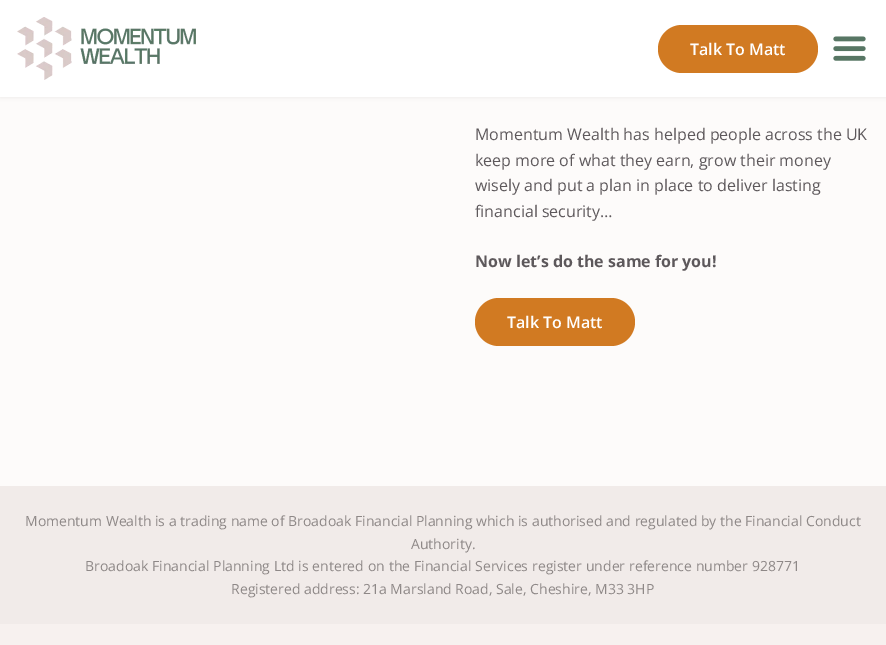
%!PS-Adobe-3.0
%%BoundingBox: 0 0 886 645
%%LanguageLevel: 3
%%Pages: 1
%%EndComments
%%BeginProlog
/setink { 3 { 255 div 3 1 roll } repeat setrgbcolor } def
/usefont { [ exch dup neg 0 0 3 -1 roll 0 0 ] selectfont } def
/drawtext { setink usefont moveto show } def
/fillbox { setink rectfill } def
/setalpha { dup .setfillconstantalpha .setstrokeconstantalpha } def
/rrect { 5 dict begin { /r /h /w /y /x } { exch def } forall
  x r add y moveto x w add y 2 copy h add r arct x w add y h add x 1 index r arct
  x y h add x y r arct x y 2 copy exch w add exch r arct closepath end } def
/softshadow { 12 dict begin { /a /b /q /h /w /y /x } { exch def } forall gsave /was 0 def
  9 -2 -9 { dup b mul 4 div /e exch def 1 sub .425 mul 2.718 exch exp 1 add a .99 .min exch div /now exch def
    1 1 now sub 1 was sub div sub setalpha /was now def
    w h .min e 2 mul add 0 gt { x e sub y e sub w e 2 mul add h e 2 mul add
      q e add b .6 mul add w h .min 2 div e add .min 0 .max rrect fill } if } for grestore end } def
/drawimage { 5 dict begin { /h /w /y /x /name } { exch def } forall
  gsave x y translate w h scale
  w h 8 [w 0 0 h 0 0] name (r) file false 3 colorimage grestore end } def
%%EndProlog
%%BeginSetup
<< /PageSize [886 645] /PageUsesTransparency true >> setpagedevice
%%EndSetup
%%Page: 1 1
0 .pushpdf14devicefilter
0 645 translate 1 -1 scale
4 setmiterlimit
0 0 886 645 253 251 250 fillbox
0 0 0 setink
0 1 886 97 0 2 0.05 softshadow
0 0 886 97 255 255 255 fillbox
(assets/img1.rgb) 17 17 179 63 drawimage
209 122 34 setink
658 25 160 48 24 rrect fill
(Talk To Matt) 690 55 /OpenSans-SemiBold 16 255 255 255 drawtext
(assets/img2.rgb) 833 36 33 25 drawimage
(Momentum Wealth has helped people across the UK) 475 140 /OpenSans-Regular 16 93 88 91 drawtext
(keep more of what they earn, grow their money) 475 166 /OpenSans-Regular 16 93 88 91 drawtext
(wisely and put a plan in place to deliver lasting) 475 191 /OpenSans-Regular 16 93 88 91 drawtext
(financial security…) 475 217 /OpenSans-Regular 16 93 88 91 drawtext
(Now let’s do the same for you!) 475 267 /OpenSans-Bold 16 93 88 91 drawtext
209 122 34 setink
475 298 160 48 24 rrect fill
(Talk To Matt) 507 328 /OpenSans-SemiBold 16 255 255 255 drawtext
0 486 886 138 241 235 233 fillbox
(Momentum Wealth is a trading name of Broadoak Financial Planning which is authorised and regulated by the Financial Conduct) 25 526 /OpenSans-Regular 14 142 136 135 drawtext
(Authority.) 411 549 /OpenSans-Regular 14 142 136 135 drawtext
85 571 moveto 0.25 0 32 (Broadoak Financial Planning Ltd is entered on the Financial Services register under reference number 928771) widthshow
(Registered address: 21a Marsland Road, Sale, Cheshire, M33 3HP) 231 594 /OpenSans-Regular 14 142 136 135 drawtext
0 624 886 21 247 241 239 fillbox
.poppdf14devicefilter showpage
%%EOF
